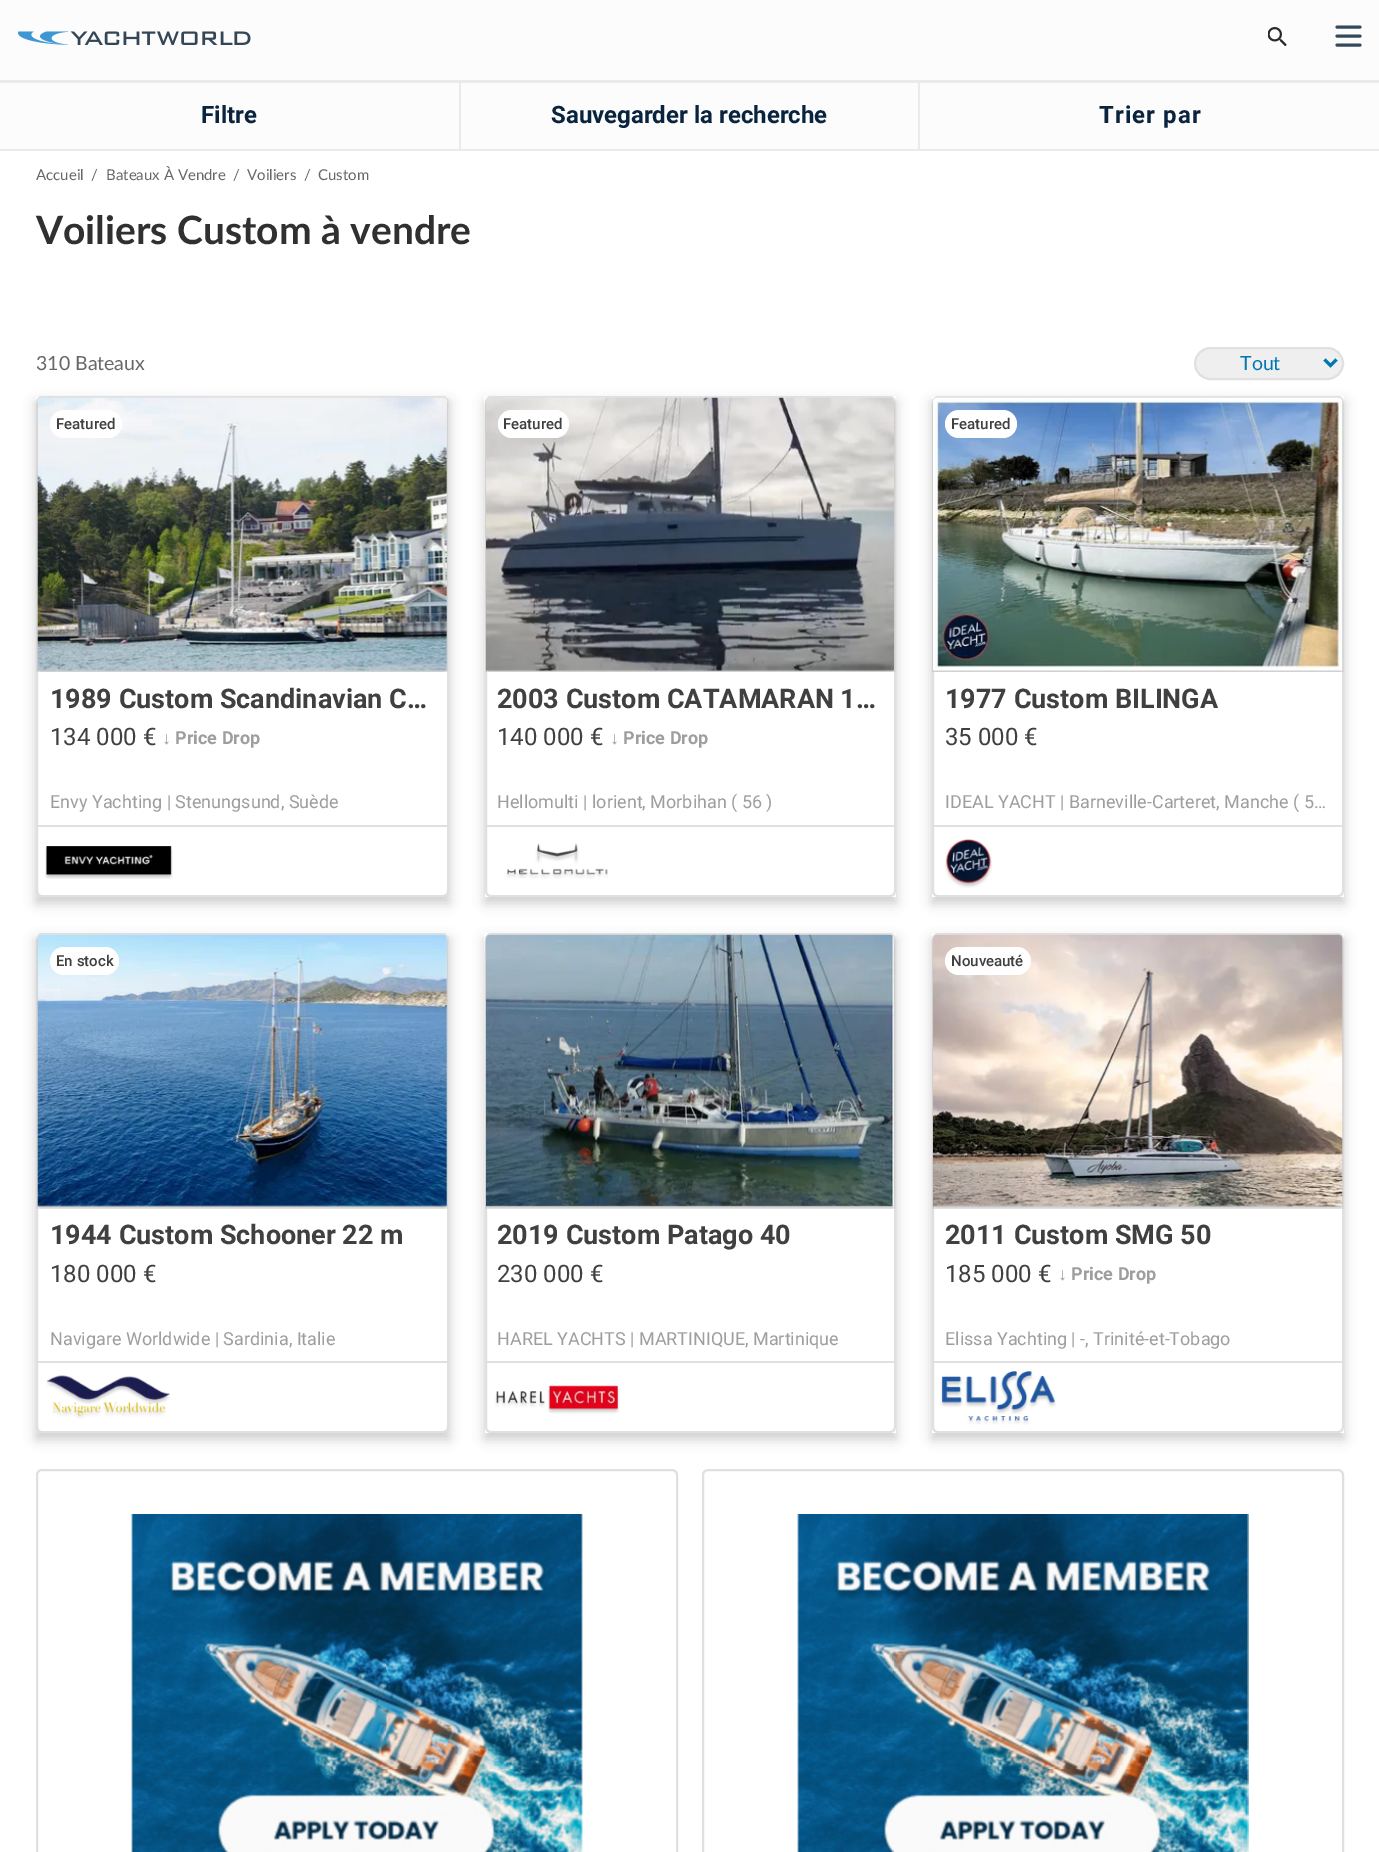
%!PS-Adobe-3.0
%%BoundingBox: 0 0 1379 1852
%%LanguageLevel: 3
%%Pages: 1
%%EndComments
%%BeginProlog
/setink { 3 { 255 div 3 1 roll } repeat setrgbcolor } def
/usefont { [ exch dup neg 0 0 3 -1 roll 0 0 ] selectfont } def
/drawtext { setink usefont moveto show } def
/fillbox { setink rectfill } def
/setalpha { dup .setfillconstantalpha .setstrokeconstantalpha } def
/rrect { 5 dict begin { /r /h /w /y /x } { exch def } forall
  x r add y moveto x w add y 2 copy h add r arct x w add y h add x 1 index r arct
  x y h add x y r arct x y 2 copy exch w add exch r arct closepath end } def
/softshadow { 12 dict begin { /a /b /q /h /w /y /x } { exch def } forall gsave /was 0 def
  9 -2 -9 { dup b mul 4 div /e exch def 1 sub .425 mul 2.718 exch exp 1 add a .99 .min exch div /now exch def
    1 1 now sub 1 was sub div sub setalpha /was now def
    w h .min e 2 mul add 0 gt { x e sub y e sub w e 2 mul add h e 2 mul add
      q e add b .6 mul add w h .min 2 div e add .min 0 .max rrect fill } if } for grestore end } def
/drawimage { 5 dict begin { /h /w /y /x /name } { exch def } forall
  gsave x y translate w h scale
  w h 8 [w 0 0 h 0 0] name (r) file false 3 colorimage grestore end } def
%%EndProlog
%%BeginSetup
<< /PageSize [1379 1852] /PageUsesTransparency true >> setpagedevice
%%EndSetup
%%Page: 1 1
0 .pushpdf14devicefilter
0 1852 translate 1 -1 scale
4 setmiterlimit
0 0 1379 1852 252 252 252 fillbox
0 80 1379 3 234 234 234 fillbox
(assets/img1.rgb) 18 31 233 14 drawimage
53 73 93 setink
3 setlinewidth
1 setlinecap
1337 27 moveto 1360 27 lineto 1337 36 moveto 1360 36 lineto 1337 45 moveto 1360 45 lineto stroke
(assets/img2.rgb) 1268 27 19 19 drawimage
0 151 1379 1701 255 255 255 fillbox
0 149 1379 2 234 234 234 fillbox
459 83 2 66 234 234 234 fillbox
(Filtre) 201 123 /Roboto-Bold 24 10 36 63 drawtext
918 83 2 66 234 234 234 fillbox
(Sauvegarder la recherche) 551 123 /Roboto-Bold 24 10 36 63 drawtext
1099 123 moveto 1.1 0 (Trier par) ashow
(Accueil) 36 180 /Lato-Regular 15 103 103 103 drawtext
(/) 91 180 /Lato-Regular 15 103 103 103 drawtext
(Bateaux À Vendre) 106 180 /Lato-Regular 15 103 103 103 drawtext
(/) 233 180 /Lato-Regular 15 103 103 103 drawtext
(Voiliers) 247 180 /Lato-Regular 15 103 103 103 drawtext
(/) 304 180 /Lato-Regular 15 103 103 103 drawtext
(Custom) 318 180 /Lato-Regular 15 103 103 103 drawtext
(Voiliers Custom à vendre) 36 244 /Lato-Bold 39 48 48 48 drawtext
(310 Bateaux) 36 370 /Lato-Regular 19.5 103 103 103 drawtext
239 239 239 setink
1195 348 148 31 15.5 rrect gsave fill grestore
224 224 224 setink
2 setlinewidth
0 setlinecap
stroke
0 119 179 setink
3 setlinewidth
1324.5 359.5 moveto 1330.5 365.5 lineto 1336.5 359.5 lineto stroke
(Tout) 1240 370 /Lato-Regular 19.5 0 119 179 drawtext
0 0 0 setink
36 402 413 501 0 6 0.2 softshadow
255 255 255 setink
37 397 411 499 5 rrect gsave fill grestore
224 224 224 setink
2 setlinewidth
stroke
(assets/img3.rgb) 36 397 412 275 drawimage
255 255 255 setink
50 410 72 28 14 rrect fill
(Featured) 56 429 /Roboto-Medium 15 64 64 64 drawtext
(1989 Custom Scandinavian C…) 50 708 /Roboto-Bold 27 64 64 64 drawtext
(134 000 €) 50 745 /Roboto-Regular 24 64 64 64 drawtext
(↓) 162 744 /LiberationSans-Bold 18 158 158 158 drawtext
(Price Drop) 175 744 /Roboto-Bold 18 158 158 158 drawtext
(Envy Yachting | Stenungsund, Suède) 50 808 /Roboto-Regular 18 158 158 158 drawtext
38 825 409 2 224 224 224 fillbox
(assets/img4.rgb) 45 846 128 33 drawimage
gsave
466 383 moveto 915 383 lineto 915 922 lineto 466 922 lineto closepath 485 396 moveto 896 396 lineto 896 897 lineto 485 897 lineto closepath eoclip newpath
0 0 0 setink
485 402 411 501 0 6 0.2 softshadow
grestore
255 255 255 setink
486 397 409 499 5 rrect gsave fill grestore
224 224 224 setink
stroke
(assets/img5.rgb) 484 397 412 275 drawimage
255 255 255 setink
498 410 71 28 14 rrect fill
(Featured) 503 429 /Roboto-Medium 15 64 64 64 drawtext
(2003 Custom CATAMARAN 1…) 497 708 /Roboto-Bold 27 64 64 64 drawtext
(140 000 €) 497 745 /Roboto-Regular 24 64 64 64 drawtext
(↓) 610 744 /LiberationSans-Bold 18 158 158 158 drawtext
(Price Drop) 623 744 /Roboto-Bold 18 158 158 158 drawtext
(Hellomulti | lorient, Morbihan \( 56 \)) 497 808 /Roboto-Regular 18 158 158 158 drawtext
486 825 408 2 224 224 224 fillbox
(assets/img6.rgb) 506 843 102 36 drawimage
gsave
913 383 moveto 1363 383 lineto 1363 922 lineto 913 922 lineto closepath 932 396 moveto 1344 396 lineto 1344 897 lineto 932 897 lineto closepath eoclip newpath
0 0 0 setink
932 402 412 501 0 6 0.2 softshadow
grestore
933 397 410 499 5 rrect stroke
(assets/img7.rgb) 932 397 412 275 drawimage
255 255 255 setink
945 410 72 28 14 rrect fill
(Featured) 951 429 /Roboto-Medium 15 64 64 64 drawtext
(1977 Custom BILINGA) 945 708 /Roboto-Bold 27 64 64 64 drawtext
(35 000 €) 945 745 /Roboto-Regular 24 64 64 64 drawtext
(IDEAL YACHT | Barneville-Carteret, Manche \( 5…) 945 808 /Roboto-Regular 18 158 158 158 drawtext
933 825 410 2 224 224 224 fillbox
(assets/img8.rgb) 945 838 47 50 drawimage
0 0 0 setink
36 939 413 500 0 6 0.2 softshadow
255 255 255 setink
37 934 411 498 5 rrect gsave fill grestore
224 224 224 setink
stroke
(assets/img9.rgb) 36 934 412 275 drawimage
255 255 255 setink
50 947 69 28 14 rrect fill
(En stock) 56 966 /Roboto-Medium 15 64 64 64 drawtext
(1944 Custom Schooner 22 m) 50 1244 /Roboto-Bold 27 64 64 64 drawtext
(180 000 €) 50 1282 /Roboto-Regular 24 64 64 64 drawtext
(Navigare Worldwide | Sardinia, Italie) 50 1345 /Roboto-Regular 18 158 158 158 drawtext
38 1361 409 2 224 224 224 fillbox
(assets/img10.rgb) 46 1375 124 44 drawimage
gsave
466 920 moveto 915 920 lineto 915 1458 lineto 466 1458 lineto closepath 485 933 moveto 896 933 lineto 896 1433 lineto 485 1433 lineto closepath eoclip newpath
0 0 0 setink
485 939 411 500 0 6 0.2 softshadow
grestore
255 255 255 setink
486 934 409 498 5 rrect gsave fill grestore
224 224 224 setink
stroke
(assets/img11.rgb) 484 934 412 275 drawimage
(2019 Custom Patago 40) 497 1244 /Roboto-Bold 27 64 64 64 drawtext
(230 000 €) 497 1282 /Roboto-Regular 24 64 64 64 drawtext
(HAREL YACHTS | MARTINIQUE, Martinique) 497 1345 /Roboto-Regular 18 158 158 158 drawtext
486 1361 408 2 224 224 224 fillbox
(assets/img12.rgb) 495 1385 125 29 drawimage
gsave
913 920 moveto 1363 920 lineto 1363 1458 lineto 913 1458 lineto closepath 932 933 moveto 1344 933 lineto 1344 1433 lineto 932 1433 lineto closepath eoclip newpath
0 0 0 setink
932 939 412 500 0 6 0.2 softshadow
grestore
255 255 255 setink
933 934 410 498 5 rrect gsave fill grestore
224 224 224 setink
stroke
(assets/img13.rgb) 932 934 412 275 drawimage
255 255 255 setink
945 947 86 28 14 rrect fill
(Nouveauté) 951 966 /Roboto-Medium 15 64 64 64 drawtext
(2011 Custom SMG 50) 945 1244 /Roboto-Bold 27 64 64 64 drawtext
(185 000 €) 945 1282 /Roboto-Regular 24 64 64 64 drawtext
(↓) 1058 1280 /LiberationSans-Bold 18 158 158 158 drawtext
(Price Drop) 1071 1280 /Roboto-Bold 18 158 158 158 drawtext
(Elissa Yachting | -, Trinité-et-Tobago) 945 1345 /Roboto-Regular 18 158 158 158 drawtext
933 1361 410 2 224 224 224 fillbox
(assets/img14.rgb) 940 1371 116 54 drawimage
37 1470 640 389 5 rrect stroke
(assets/img15.rgb) 131 1514 452 338 drawimage
703 1470 640 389 5 rrect stroke
(assets/img16.rgb) 797 1514 452 338 drawimage
.poppdf14devicefilter showpage
%%EOF
